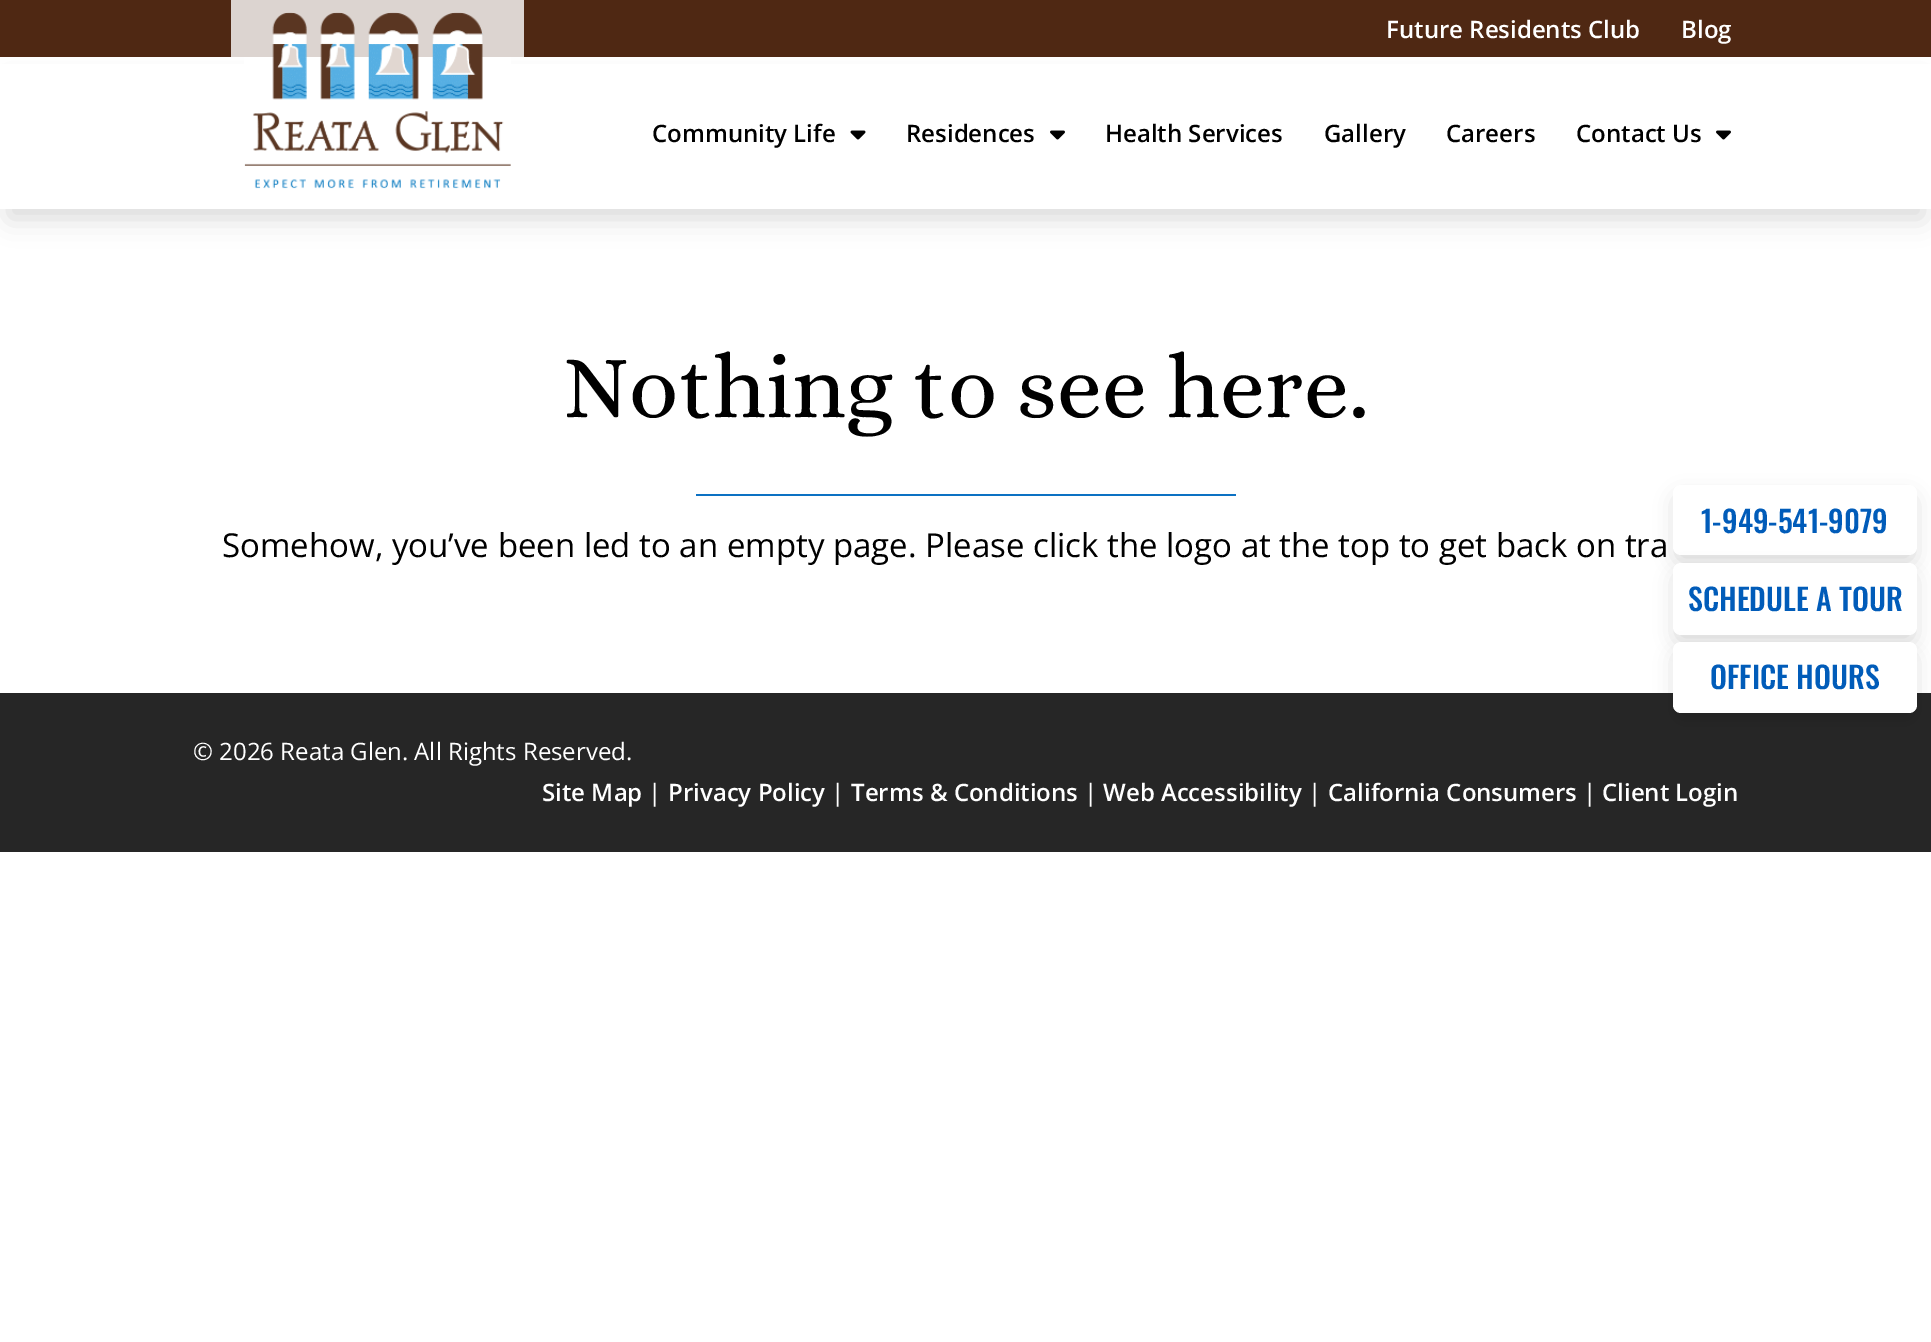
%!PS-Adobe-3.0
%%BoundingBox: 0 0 1931 1342
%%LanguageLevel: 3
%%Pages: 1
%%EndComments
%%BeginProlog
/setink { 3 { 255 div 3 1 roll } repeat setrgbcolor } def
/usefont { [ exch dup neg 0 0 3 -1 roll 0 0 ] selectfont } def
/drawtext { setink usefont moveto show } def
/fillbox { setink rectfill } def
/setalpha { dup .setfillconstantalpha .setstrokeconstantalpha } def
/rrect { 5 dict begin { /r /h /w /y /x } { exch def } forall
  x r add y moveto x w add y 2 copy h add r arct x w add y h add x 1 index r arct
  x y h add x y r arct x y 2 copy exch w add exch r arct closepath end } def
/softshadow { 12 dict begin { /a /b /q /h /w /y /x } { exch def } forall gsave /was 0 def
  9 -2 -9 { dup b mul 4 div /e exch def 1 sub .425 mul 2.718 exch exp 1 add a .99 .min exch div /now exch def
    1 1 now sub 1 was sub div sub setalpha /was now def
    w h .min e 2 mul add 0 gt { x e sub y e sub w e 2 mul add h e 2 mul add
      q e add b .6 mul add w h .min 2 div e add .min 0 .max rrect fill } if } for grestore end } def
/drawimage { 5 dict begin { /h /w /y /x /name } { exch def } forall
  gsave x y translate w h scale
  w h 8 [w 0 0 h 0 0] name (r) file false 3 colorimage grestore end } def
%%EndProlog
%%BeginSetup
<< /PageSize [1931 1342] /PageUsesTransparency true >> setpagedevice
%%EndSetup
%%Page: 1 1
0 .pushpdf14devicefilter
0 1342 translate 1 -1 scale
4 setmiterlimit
0 0 1931 1342 255 255 255 fillbox
0 0 1931 57 79 40 19 fillbox
(Future Residents Club) 1386 38 /OpenSans-SemiBold 24 255 255 255 drawtext
(Blog) 1681 38 /OpenSans-SemiBold 24 255 255 255 drawtext
0 0 0 setink
9 84 1914 134 0 13.5 0.15 softshadow
0 64 1931 145 255 255 255 fillbox
0.8 setalpha
231 0 293 57 255 255 255 fillbox
1 setalpha
(assets/img1.rgb) 244 12 267 177 drawimage
(Community Life) 652 142 /OpenSans-SemiBold 24 0 0 0 drawtext
(assets/img2.rgb) 850 130 16 10 drawimage
(Residences) 906 142 /OpenSans-SemiBold 24 0 0 0 drawtext
(assets/img3.rgb) 1050 130 15 10 drawimage
(Health Services) 1105 142 /OpenSans-SemiBold 24 0 0 0 drawtext
(Gallery) 1324 142 /OpenSans-SemiBold 24 0 0 0 drawtext
(Careers) 1446 142 /OpenSans-SemiBold 24 0 0 0 drawtext
(Contact Us) 1576 142 /OpenSans-SemiBold 24 0 0 0 drawtext
(assets/img3.rgb) 1716 130 15 10 drawimage
(Nothing to see here.) 563 417 /Alice-Regular 90 0 0 0 drawtext
696 494 540 2 12 113 195 fillbox
(Somehow, you’ve been led to an empty page. Please click the logo at the top to get back on tra) 222 557 /OpenSans-Regular 33 0 0 0 drawtext
1676 497 238 64 5 10.5 0.15 softshadow
255 255 255 setink
1673 485 244 70 8 rrect fill
(1-949-541-9079) 1701 533 /Oswald-Medium 30 1 92 185 drawtext
0 0 0 setink
1676 575 238 66 5 10.5 0.15 softshadow
255 255 255 setink
1673 563 244 72 8 rrect fill
(SCHEDULE A TOUR) 1688 611 /Oswald-Medium 30 1 92 185 drawtext
0 693 1931 159 38 38 38 fillbox
0 0 0 setink
1676 654 238 65 5 10.5 0.15 softshadow
255 255 255 setink
1673 642 244 71 8 rrect fill
(OFFICE HOURS) 1710 689 /Oswald-Medium 30 1 92 185 drawtext
(© 2026 Reata Glen. All Rights Reserved.) 193 760 /OpenSans-Regular 24 255 255 255 drawtext
(Site Map) 542 801 /OpenSans-SemiBold 24 255 255 255 drawtext
(|) 648 801 /OpenSans-Regular 24 255 255 255 drawtext
(Privacy Policy) 668 801 /OpenSans-SemiBold 24 255 255 255 drawtext
(|) 831 801 /OpenSans-Regular 24 255 255 255 drawtext
(Terms & Conditions) 851 801 /OpenSans-SemiBold 24 255 255 255 drawtext
(|) 1084 801 /OpenSans-Regular 24 255 255 255 drawtext
(Web Accessibility) 1103 801 /OpenSans-SemiBold 24 255 255 255 drawtext
(|) 1308 801 /OpenSans-Regular 24 255 255 255 drawtext
(California Consumers) 1328 801 /OpenSans-SemiBold 24 255 255 255 drawtext
(|) 1583 801 /OpenSans-Regular 24 255 255 255 drawtext
(Client Login) 1602 801 /OpenSans-SemiBold 24 255 255 255 drawtext
.poppdf14devicefilter showpage
%%EOF
